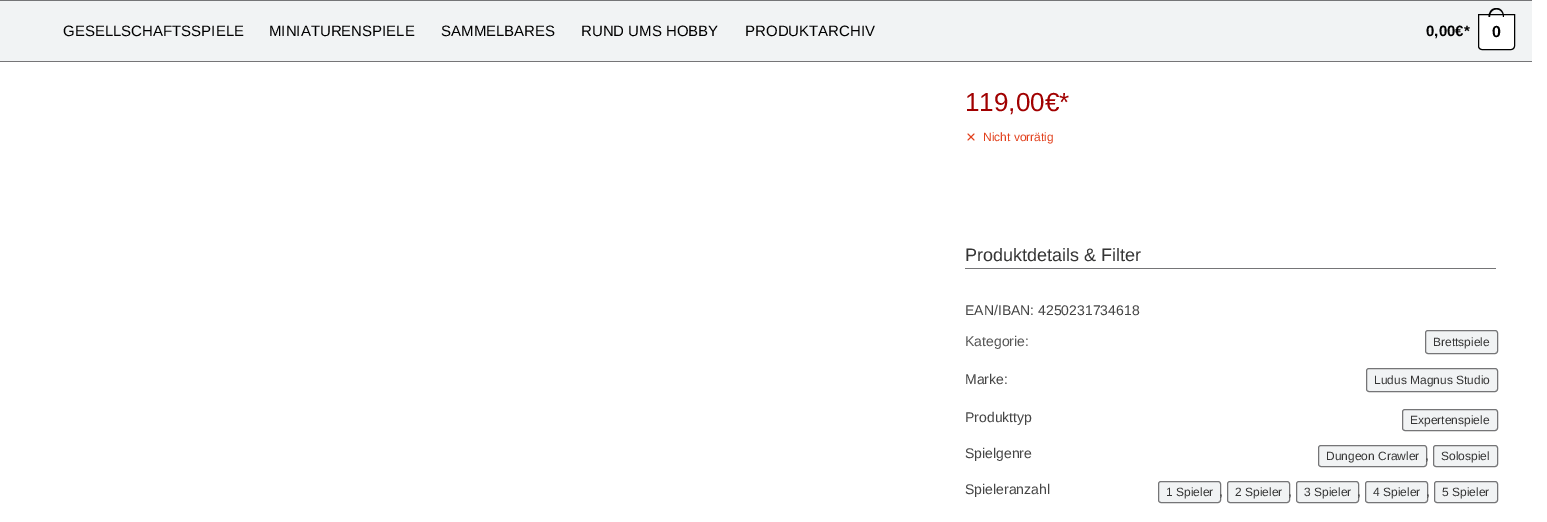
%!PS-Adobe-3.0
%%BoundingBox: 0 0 1547 522
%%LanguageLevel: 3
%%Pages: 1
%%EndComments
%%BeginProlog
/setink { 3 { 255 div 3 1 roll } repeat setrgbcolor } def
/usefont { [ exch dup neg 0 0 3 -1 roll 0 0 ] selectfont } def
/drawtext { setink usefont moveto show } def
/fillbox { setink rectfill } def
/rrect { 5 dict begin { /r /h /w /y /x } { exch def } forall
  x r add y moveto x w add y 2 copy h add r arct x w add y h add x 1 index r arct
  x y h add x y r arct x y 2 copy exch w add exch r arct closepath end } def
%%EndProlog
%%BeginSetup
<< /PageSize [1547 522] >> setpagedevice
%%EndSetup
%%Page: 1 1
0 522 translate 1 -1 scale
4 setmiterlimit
0 0 1547 522 255 255 255 fillbox
0 1 1532 60 241 243 244 fillbox
0 0 1532 1 117 117 119 fillbox
0 61 1532 1 117 117 119 fillbox
(GESELLSCHAFTSSPIELE) 63 36 /LiberationSans-Regular 15 0 0 0 drawtext
(MINIATURENSPIELE) 269 36 /LiberationSans-Regular 15 0 0 0 drawtext
(SAMMELBARES) 441 36 /LiberationSans-Regular 15 0 0 0 drawtext
(RUND UMS HOBBY) 581 36 /LiberationSans-Regular 15 0 0 0 drawtext
(PRODUKTARCHIV) 745 36 /LiberationSans-Regular 15 0 0 0 drawtext
(0,00€*) 1426 36 /LiberationSans-Bold 15 0 0 0 drawtext
255 255 255 setink
1478.5 14.5 moveto 1514.5 14.5 lineto 1514.5 46 lineto 1514.5 48 1513 49.5 1511 49.5 curveto 1482 49.5 lineto 1480 49.5 1478.5 48 1478.5 46 curveto closepath gsave fill grestore
0 0 0 setink
stroke
1496.5 8 moveto 1501.5 8 1504 12.5 1504 17 curveto 1488.5 17 lineto 1488.5 12.5 1491 8 1496.5 8 curveto closepath 1496.5 9.5 moveto 1501 9.5 1503 13 1503 17 curveto 1490 17 lineto 1490 13 1492 9.5 1496.5 9.5 curveto closepath eofill
/LiberationSans-Bold 16 usefont
1492 37 moveto -1 0 (0) ashow
(119,00€*) 965 111 /LiberationSans-Regular 26 161 0 0 drawtext
226 64 28 setink
1 setlinecap
1 setlinejoin
968 140 moveto 974 134 lineto 968 134 moveto 974 140 lineto stroke
(Nicht vorrätig) 983 141 /LiberationSans-Regular 12 226 64 28 drawtext
965 268 531 1 117 117 119 fillbox
(Produktdetails & Filter) 965 261 /LiberationSans-Regular 18 53 53 53 drawtext
(EAN/IBAN: 4250231734618) 965 315 /LiberationSans-Regular 14 68 68 68 drawtext
(Kategorie:) 965 346 /LiberationSans-Regular 14 85 85 85 drawtext
241 243 244 setink
1425.5 330.5 72 23 2.5 rrect gsave fill grestore
117 117 119 setink
0 setlinecap
0 setlinejoin
stroke
(Brettspiele) 1433 346 /LiberationSans-Regular 12 53 53 53 drawtext
(Marke:) 965 384 /LiberationSans-Regular 14 68 68 68 drawtext
241 243 244 setink
1366.5 368.5 131 23 2.5 rrect gsave fill grestore
117 117 119 setink
stroke
(Ludus Magnus Studio) 1374 384 /LiberationSans-Regular 12 53 53 53 drawtext
(Produkttyp) 965 422 /LiberationSans-Regular 14 68 68 68 drawtext
241 243 244 setink
1402.5 409.5 95 21 2.5 rrect gsave fill grestore
117 117 119 setink
stroke
(Expertenspiele) 1410 424 /LiberationSans-Regular 12 53 53 53 drawtext
(Spielgenre) 965 458 /LiberationSans-Regular 14 68 68 68 drawtext
241 243 244 setink
1318.5 445.5 108 21 2.5 rrect gsave fill grestore
117 117 119 setink
stroke
(Dungeon Crawler) 1326 460 /LiberationSans-Regular 12 53 53 53 drawtext
(,) 1425 460 /LiberationSans-Regular 14 68 68 68 drawtext
241 243 244 setink
1433.5 445.5 64 21 2.5 rrect gsave fill grestore
117 117 119 setink
stroke
(Solospiel) 1441 460 /LiberationSans-Regular 12 53 53 53 drawtext
(Spieleranzahl) 965 494 /LiberationSans-Regular 14 68 68 68 drawtext
241 243 244 setink
1158.5 481.5 62 21 2.5 rrect gsave fill grestore
117 117 119 setink
stroke
(1 Spieler) 1166 496 /LiberationSans-Regular 12 53 53 53 drawtext
(,) 1219 496 /LiberationSans-Regular 14 68 68 68 drawtext
241 243 244 setink
1227.5 481.5 62 21 2.5 rrect gsave fill grestore
117 117 119 setink
stroke
(2 Spieler) 1235 496 /LiberationSans-Regular 12 53 53 53 drawtext
(,) 1288 496 /LiberationSans-Regular 14 68 68 68 drawtext
241 243 244 setink
1296.5 481.5 62 21 2.5 rrect gsave fill grestore
117 117 119 setink
stroke
(3 Spieler) 1304 496 /LiberationSans-Regular 12 53 53 53 drawtext
(,) 1357 496 /LiberationSans-Regular 14 68 68 68 drawtext
241 243 244 setink
1365.5 481.5 62 21 2.5 rrect gsave fill grestore
117 117 119 setink
stroke
(4 Spieler) 1373 496 /LiberationSans-Regular 12 53 53 53 drawtext
(,) 1426 496 /LiberationSans-Regular 14 68 68 68 drawtext
241 243 244 setink
1434.5 481.5 63 21 2.5 rrect gsave fill grestore
117 117 119 setink
stroke
(5 Spieler) 1442 496 /LiberationSans-Regular 12 53 53 53 drawtext
showpage
%%EOF
